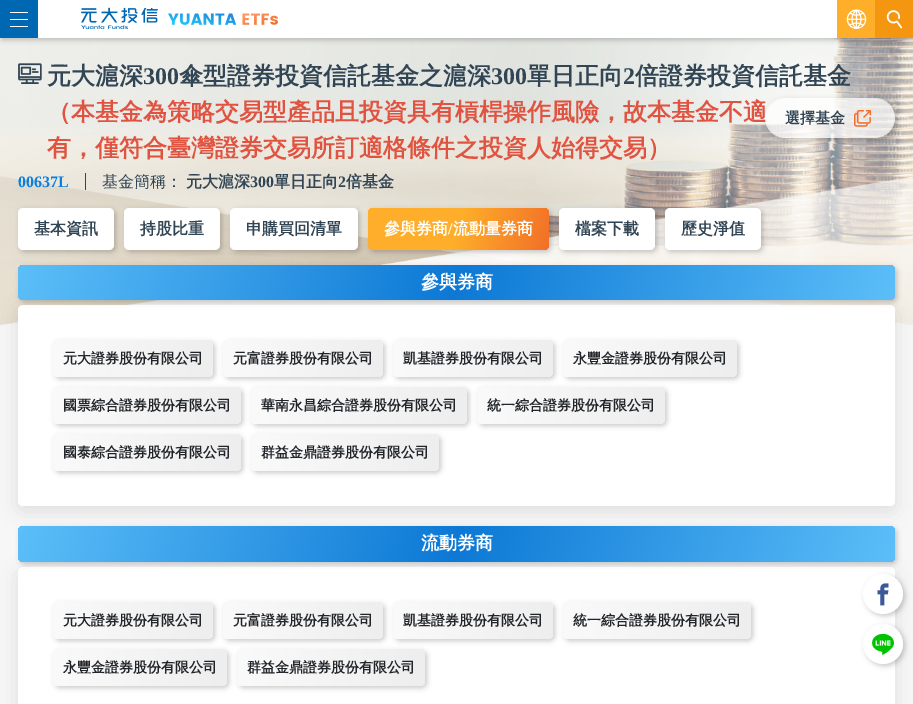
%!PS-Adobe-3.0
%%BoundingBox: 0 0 913 704
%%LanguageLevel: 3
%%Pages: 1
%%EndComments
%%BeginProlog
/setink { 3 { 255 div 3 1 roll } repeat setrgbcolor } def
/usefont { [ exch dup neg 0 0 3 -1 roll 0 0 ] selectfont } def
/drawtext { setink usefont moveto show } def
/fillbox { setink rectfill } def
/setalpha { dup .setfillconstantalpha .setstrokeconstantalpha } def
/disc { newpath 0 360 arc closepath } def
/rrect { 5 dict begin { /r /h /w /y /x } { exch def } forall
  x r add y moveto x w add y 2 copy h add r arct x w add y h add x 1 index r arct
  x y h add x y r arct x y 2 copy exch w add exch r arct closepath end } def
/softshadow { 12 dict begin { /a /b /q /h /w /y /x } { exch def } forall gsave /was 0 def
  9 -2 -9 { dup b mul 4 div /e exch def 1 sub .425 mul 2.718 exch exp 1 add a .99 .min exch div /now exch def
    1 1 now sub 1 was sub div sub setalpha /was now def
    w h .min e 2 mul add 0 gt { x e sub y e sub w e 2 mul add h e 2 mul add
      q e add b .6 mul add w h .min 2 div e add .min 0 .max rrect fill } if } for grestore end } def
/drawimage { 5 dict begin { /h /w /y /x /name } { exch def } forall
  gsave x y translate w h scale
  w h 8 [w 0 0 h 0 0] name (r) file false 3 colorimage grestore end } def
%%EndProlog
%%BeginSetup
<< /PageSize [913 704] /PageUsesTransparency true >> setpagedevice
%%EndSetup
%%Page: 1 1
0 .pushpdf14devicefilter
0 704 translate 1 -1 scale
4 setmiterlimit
0 0 913 704 247 247 247 fillbox
(assets/img5.rgb) 0 38 913 288 drawimage
0 0 0 setink
2 2 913 38 0 2.5 0.2 softshadow
38 0 799 38 255 255 255 fillbox
0 0 38 38 0 103 179 fillbox
10 19 18 1 255 255 255 fillbox
10 12 18 1 255 255 255 fillbox
10 26 18 1 255 255 255 fillbox
(assets/img1.rgb) 81 7 77 22 drawimage
(assets/img2.rgb) 168 13 110 12 drawimage
837 0 38 38 255 174 41 fillbox
(assets/img3.rgb) 846 9 21 20 drawimage
875 0 38 38 245 150 17 fillbox
(assets/img4.rgb) 886 10 17 19 drawimage
(assets/img6.rgb) 18 63 24 21 drawimage
(元大滬深) 47 84 /WenQuanYiZenHei-Bold 24 50 69 84 drawtext
(300) 143 84 /LiberationSerif-Bold 24 50 69 84 drawtext
(傘型證券投資信託基金之滬深) 179 84 /WenQuanYiZenHei-Bold 24 50 69 84 drawtext
(300) 491 84 /LiberationSerif-Bold 24 50 69 84 drawtext
(單日正向) 527 84 /WenQuanYiZenHei-Bold 24 50 69 84 drawtext
(2) 623 84 /LiberationSerif-Bold 24 50 69 84 drawtext
(倍證券投資信託基金) 635 84 /WenQuanYiZenHei-Bold 24 50 69 84 drawtext
(（本基金為策略交易型產品且投資具有槓桿操作風險，故本基金不適) 47 120 /WenQuanYiZenHei-Bold 24 224 83 65 drawtext
(有，僅符合臺灣證券交易所訂適格條件之投資人始得交易）) 47 156 /WenQuanYiZenHei-Bold 24 224 83 65 drawtext
gsave
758 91 moveto 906 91 lineto 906 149 lineto 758 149 lineto closepath 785 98 moveto 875 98 lineto 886 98 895 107 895 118 curveto 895 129 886 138 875 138 curveto 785 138 lineto 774 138 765 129 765 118 curveto 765 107 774 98 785 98 curveto closepath eoclip newpath
0 0 0 setink
767 100 130 40 20 2.5 0.2 softshadow
grestore
0.7 setalpha
255 255 255 setink
765 98 130 40 20 rrect fill
1 setalpha
(選擇基金) 785 123 /WenQuanYiZenHei-Bold 15 50 69 84 drawtext
(assets/img7.rgb) 854 110 18 17 drawimage
(00637L) 18 187 /LiberationSerif-Bold 16 11 127 222 drawtext
85 173 1 17 50 69 84 fillbox
(基金簡稱：) 102 187 /WenQuanYiZenHei-Medium 16 50 69 84 drawtext
(元大滬深) 186 187 /WenQuanYiZenHei-Bold 16 50 69 84 drawtext
(300) 250 187 /LiberationSerif-Bold 16 50 69 84 drawtext
(單日正向) 274 187 /WenQuanYiZenHei-Bold 16 50 69 84 drawtext
(2) 338 187 /LiberationSerif-Bold 16 50 69 84 drawtext
(倍基金) 346 187 /WenQuanYiZenHei-Bold 16 50 69 84 drawtext
gsave
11 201 moveto 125 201 lineto 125 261 lineto 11 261 lineto closepath 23 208 moveto 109 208 lineto 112 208 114 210 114 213 curveto 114 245 lineto 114 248 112 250 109 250 curveto 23 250 lineto 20 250 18 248 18 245 curveto 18 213 lineto 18 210 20 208 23 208 curveto closepath eoclip newpath
0 0 0 setink
20 210 96 42 5 2.5 0.2 softshadow
grestore
255 255 255 setink
18 208 96 42 5 rrect fill
(基本資訊) 34 234 /WenQuanYiZenHei-Bold 16 50 69 84 drawtext
0 0 0 setink
126 210 96 42 5 2.5 0.2 softshadow
255 255 255 setink
124 208 96 42 5 rrect fill
(持股比重) 140 234 /WenQuanYiZenHei-Bold 16 50 69 84 drawtext
0 0 0 setink
232 210 128 42 5 2.5 0.2 softshadow
255 255 255 setink
230 208 128 42 5 rrect fill
(申購買回清單) 246 234 /WenQuanYiZenHei-Bold 16 50 69 84 drawtext
0 0 0 setink
370 210 181 42 5 2.5 0.2 softshadow
gsave 368 208 181 42 5 rrect clip newpath
<< /ShadingType 2 /ColorSpace /DeviceRGB /Coords [548 255 369 203] /Extend [true true] /Function << /FunctionType 3 /Domain [0 1] /Functions [<< /FunctionType 2 /Domain [0 1] /C0 [0.949 0.435 0.157] /C1 [0.996 0.682 0.165] /N 1 >> << /FunctionType 2 /Domain [0 1] /C0 [0.996 0.682 0.165] /C1 [0.996 0.682 0.165] /N 1 >>] /Bounds [0.5] /Encode [0 1 0 1] >> >> shfill grestore
(參與券商) 384 234 /WenQuanYiZenHei-Bold 16 255 255 255 drawtext
(/) 448 234 /LiberationSerif-Bold 16 255 255 255 drawtext
(流動量券商) 453 234 /WenQuanYiZenHei-Bold 16 255 255 255 drawtext
0 0 0 setink
561 210 96 42 5 2.5 0.2 softshadow
255 255 255 setink
559 208 96 42 5 rrect fill
(檔案下載) 575 234 /WenQuanYiZenHei-Bold 16 50 69 84 drawtext
0 0 0 setink
667 210 96 42 5 2.5 0.2 softshadow
255 255 255 setink
665 208 96 42 5 rrect fill
(歷史淨值) 681 234 /WenQuanYiZenHei-Bold 16 50 69 84 drawtext
0 0 0 setink
18 310 877 201 5 10 0.1 softshadow
255 255 255 setink
18 305 877 201 5 rrect fill
0 0 0 setink
20 267 877 35 5 2.5 0.2 softshadow
gsave 18 265 877 35 5 rrect clip newpath
<< /ShadingType 2 /ColorSpace /DeviceRGB /Coords [866 400 47 165] /Extend [true true] /Function << /FunctionType 3 /Domain [0 1] /Functions [<< /FunctionType 2 /Domain [0 1] /C0 [0.361 0.749 0.976] /C1 [0.051 0.475 0.835] /N 1 >> << /FunctionType 2 /Domain [0 1] /C0 [0.051 0.475 0.835] /C1 [0.361 0.749 0.976] /N 1 >>] /Bounds [0.5] /Encode [0 1 0 1] >> >> shfill grestore
(參與券商) 421 288 /WenQuanYiZenHei-Bold 18 255 255 255 drawtext
0 0 0 setink
55 342 160 37 5 2.5 0.2 softshadow
gsave 53 340 160 37 5 rrect clip newpath
<< /ShadingType 2 /ColorSpace /DeviceRGB /Coords [53 359 213 359] /Extend [true true] /Function << /FunctionType 2 /Domain [0 1] /C0 [0.98 0.98 0.98] /C1 [0.933 0.933 0.933] /N 1 >> >> shfill grestore
(元大證券股份有限公司) 63 363 /WenQuanYiZenHei-Bold 14 33 37 41 drawtext
0 0 0 setink
225 342 160 37 5 2.5 0.2 softshadow
gsave 223 340 160 37 5 rrect clip newpath
<< /ShadingType 2 /ColorSpace /DeviceRGB /Coords [223 359 383 359] /Extend [true true] /Function << /FunctionType 2 /Domain [0 1] /C0 [0.98 0.98 0.98] /C1 [0.933 0.933 0.933] /N 1 >> >> shfill grestore
(元富證券股份有限公司) 233 363 /WenQuanYiZenHei-Bold 14 33 37 41 drawtext
0 0 0 setink
395 342 160 37 5 2.5 0.2 softshadow
gsave 393 340 160 37 5 rrect clip newpath
<< /ShadingType 2 /ColorSpace /DeviceRGB /Coords [393 359 553 359] /Extend [true true] /Function << /FunctionType 2 /Domain [0 1] /C0 [0.98 0.98 0.98] /C1 [0.933 0.933 0.933] /N 1 >> >> shfill grestore
(凱基證券股份有限公司) 403 363 /WenQuanYiZenHei-Bold 14 33 37 41 drawtext
0 0 0 setink
565 342 174 37 5 2.5 0.2 softshadow
gsave 563 340 174 37 5 rrect clip newpath
<< /ShadingType 2 /ColorSpace /DeviceRGB /Coords [563 359 737 359] /Extend [true true] /Function << /FunctionType 2 /Domain [0 1] /C0 [0.98 0.98 0.98] /C1 [0.933 0.933 0.933] /N 1 >> >> shfill grestore
(永豐金證券股份有限公司) 573 363 /WenQuanYiZenHei-Bold 14 33 37 41 drawtext
0 0 0 setink
55 389 188 37 5 2.5 0.2 softshadow
gsave 53 387 188 37 5 rrect clip newpath
<< /ShadingType 2 /ColorSpace /DeviceRGB /Coords [53 406 241 406] /Extend [true true] /Function << /FunctionType 2 /Domain [0 1] /C0 [0.98 0.98 0.98] /C1 [0.933 0.933 0.933] /N 1 >> >> shfill grestore
(國票綜合證券股份有限公司) 63 410 /WenQuanYiZenHei-Bold 14 33 37 41 drawtext
0 0 0 setink
253 389 216 37 5 2.5 0.2 softshadow
gsave 251 387 216 37 5 rrect clip newpath
<< /ShadingType 2 /ColorSpace /DeviceRGB /Coords [251 406 467 406] /Extend [true true] /Function << /FunctionType 2 /Domain [0 1] /C0 [0.98 0.98 0.98] /C1 [0.933 0.933 0.933] /N 1 >> >> shfill grestore
(華南永昌綜合證券股份有限公司) 261 410 /WenQuanYiZenHei-Bold 14 33 37 41 drawtext
0 0 0 setink
479 389 188 37 5 2.5 0.2 softshadow
gsave 477 387 188 37 5 rrect clip newpath
<< /ShadingType 2 /ColorSpace /DeviceRGB /Coords [477 406 665 406] /Extend [true true] /Function << /FunctionType 2 /Domain [0 1] /C0 [0.98 0.98 0.98] /C1 [0.933 0.933 0.933] /N 1 >> >> shfill grestore
(統一綜合證券股份有限公司) 487 410 /WenQuanYiZenHei-Bold 14 33 37 41 drawtext
0 0 0 setink
55 436 188 37 5 2.5 0.2 softshadow
gsave 53 434 188 37 5 rrect clip newpath
<< /ShadingType 2 /ColorSpace /DeviceRGB /Coords [53 453 241 453] /Extend [true true] /Function << /FunctionType 2 /Domain [0 1] /C0 [0.98 0.98 0.98] /C1 [0.933 0.933 0.933] /N 1 >> >> shfill grestore
(國泰綜合證券股份有限公司) 63 457 /WenQuanYiZenHei-Bold 14 33 37 41 drawtext
0 0 0 setink
253 436 188 37 5 2.5 0.2 softshadow
gsave 251 434 188 37 5 rrect clip newpath
<< /ShadingType 2 /ColorSpace /DeviceRGB /Coords [251 453 439 453] /Extend [true true] /Function << /FunctionType 2 /Domain [0 1] /C0 [0.98 0.98 0.98] /C1 [0.933 0.933 0.933] /N 1 >> >> shfill grestore
(群益金鼎證券股份有限公司) 261 457 /WenQuanYiZenHei-Bold 14 33 37 41 drawtext
0 0 0 setink
18 572 877 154 5 10 0.1 softshadow
255 255 255 setink
18 567 877 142 5 rrect fill
0 0 0 setink
20 528 877 36 5 2.5 0.2 softshadow
gsave 18 526 877 36 5 rrect clip newpath
<< /ShadingType 2 /ColorSpace /DeviceRGB /Coords [866 662 47 426] /Extend [true true] /Function << /FunctionType 3 /Domain [0 1] /Functions [<< /FunctionType 2 /Domain [0 1] /C0 [0.361 0.749 0.976] /C1 [0.051 0.475 0.835] /N 1 >> << /FunctionType 2 /Domain [0 1] /C0 [0.051 0.475 0.835] /C1 [0.361 0.749 0.976] /N 1 >>] /Bounds [0.5] /Encode [0 1 0 1] >> >> shfill grestore
(流動券商) 421 549 /WenQuanYiZenHei-Bold 18 255 255 255 drawtext
0 0 0 setink
55 604 160 37 5 2.5 0.2 softshadow
gsave 53 602 160 37 5 rrect clip newpath
<< /ShadingType 2 /ColorSpace /DeviceRGB /Coords [53 621 213 621] /Extend [true true] /Function << /FunctionType 2 /Domain [0 1] /C0 [0.98 0.98 0.98] /C1 [0.933 0.933 0.933] /N 1 >> >> shfill grestore
(元大證券股份有限公司) 63 625 /WenQuanYiZenHei-Bold 14 33 37 41 drawtext
0 0 0 setink
225 604 160 37 5 2.5 0.2 softshadow
gsave 223 602 160 37 5 rrect clip newpath
<< /ShadingType 2 /ColorSpace /DeviceRGB /Coords [223 621 383 621] /Extend [true true] /Function << /FunctionType 2 /Domain [0 1] /C0 [0.98 0.98 0.98] /C1 [0.933 0.933 0.933] /N 1 >> >> shfill grestore
(元富證券股份有限公司) 233 625 /WenQuanYiZenHei-Bold 14 33 37 41 drawtext
0 0 0 setink
395 604 160 37 5 2.5 0.2 softshadow
gsave 393 602 160 37 5 rrect clip newpath
<< /ShadingType 2 /ColorSpace /DeviceRGB /Coords [393 621 553 621] /Extend [true true] /Function << /FunctionType 2 /Domain [0 1] /C0 [0.98 0.98 0.98] /C1 [0.933 0.933 0.933] /N 1 >> >> shfill grestore
(凱基證券股份有限公司) 403 625 /WenQuanYiZenHei-Bold 14 33 37 41 drawtext
0 0 0 setink
565 604 188 37 5 2.5 0.2 softshadow
gsave 563 602 188 37 5 rrect clip newpath
<< /ShadingType 2 /ColorSpace /DeviceRGB /Coords [563 621 751 621] /Extend [true true] /Function << /FunctionType 2 /Domain [0 1] /C0 [0.98 0.98 0.98] /C1 [0.933 0.933 0.933] /N 1 >> >> shfill grestore
(統一綜合證券股份有限公司) 573 625 /WenQuanYiZenHei-Bold 14 33 37 41 drawtext
0 0 0 setink
55 651 174 37 5 2.5 0.2 softshadow
gsave 53 649 174 37 5 rrect clip newpath
<< /ShadingType 2 /ColorSpace /DeviceRGB /Coords [53 668 227 668] /Extend [true true] /Function << /FunctionType 2 /Domain [0 1] /C0 [0.98 0.98 0.98] /C1 [0.933 0.933 0.933] /N 1 >> >> shfill grestore
(永豐金證券股份有限公司) 63 672 /WenQuanYiZenHei-Bold 14 33 37 41 drawtext
0 0 0 setink
239 651 188 37 5 2.5 0.2 softshadow
gsave 237 649 188 37 5 rrect clip newpath
<< /ShadingType 2 /ColorSpace /DeviceRGB /Coords [237 668 425 668] /Extend [true true] /Function << /FunctionType 2 /Domain [0 1] /C0 [0.98 0.98 0.98] /C1 [0.933 0.933 0.933] /N 1 >> >> shfill grestore
(群益金鼎證券股份有限公司) 247 672 /WenQuanYiZenHei-Bold 14 33 37 41 drawtext
0 0 0 setink
865 576 40 40 20 2.5 0.2 softshadow
255 255 255 setink
883 594 20 disc fill
(assets/img8.rgb) 877 583 12 23 drawimage
0 0 0 setink
865 626 40 40 20 2.5 0.2 softshadow
255 255 255 setink
883 644 20 disc fill
(assets/img9.rgb) 872 633 22 22 drawimage
.poppdf14devicefilter showpage
%%EOF
